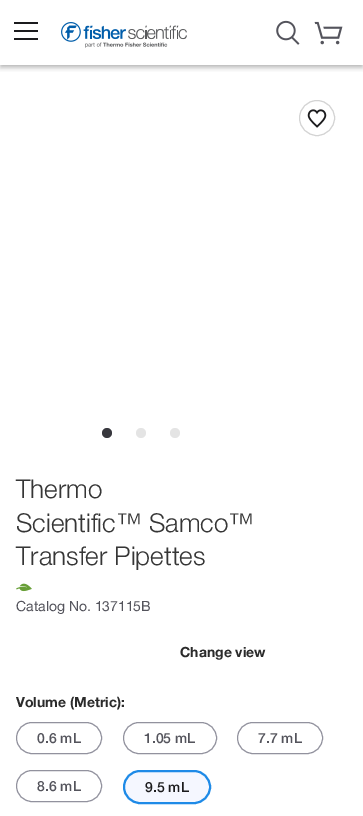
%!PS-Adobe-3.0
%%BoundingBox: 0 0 363 816
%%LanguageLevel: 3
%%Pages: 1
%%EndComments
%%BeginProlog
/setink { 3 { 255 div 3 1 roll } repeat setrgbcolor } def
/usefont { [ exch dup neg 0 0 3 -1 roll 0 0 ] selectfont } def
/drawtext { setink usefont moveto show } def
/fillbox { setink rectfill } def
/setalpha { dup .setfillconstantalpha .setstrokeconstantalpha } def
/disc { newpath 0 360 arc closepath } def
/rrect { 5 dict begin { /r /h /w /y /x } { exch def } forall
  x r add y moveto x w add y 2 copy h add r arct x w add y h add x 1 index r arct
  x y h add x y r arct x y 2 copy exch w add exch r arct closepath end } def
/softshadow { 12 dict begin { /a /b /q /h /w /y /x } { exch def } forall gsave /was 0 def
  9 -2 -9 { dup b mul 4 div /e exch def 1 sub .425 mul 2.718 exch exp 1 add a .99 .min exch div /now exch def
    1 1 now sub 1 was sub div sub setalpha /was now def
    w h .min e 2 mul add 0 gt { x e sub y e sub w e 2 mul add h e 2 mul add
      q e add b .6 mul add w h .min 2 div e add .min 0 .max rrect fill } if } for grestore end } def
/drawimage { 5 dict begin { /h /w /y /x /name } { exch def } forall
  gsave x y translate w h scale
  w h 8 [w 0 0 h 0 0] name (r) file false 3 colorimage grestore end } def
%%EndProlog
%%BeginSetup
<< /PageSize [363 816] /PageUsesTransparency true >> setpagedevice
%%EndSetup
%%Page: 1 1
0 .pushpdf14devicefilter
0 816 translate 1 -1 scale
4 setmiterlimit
0 0 363 816 255 255 255 fillbox
gsave
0 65 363 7 rectclip
0 0 0 setink
0 4 363 65 0 2.5 0.14 softshadow
grestore
gsave
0 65 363 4 rectclip
0 0 0 setink
1 3 361 63 0 2 0.2 softshadow
grestore
14 30 24 2 27 27 29 fillbox
14 22 24 2 27 27 29 fillbox
14 38 24 2 27 27 29 fillbox
(assets/img1.rgb) 61 22 126 26 drawimage
(assets/img2.rgb) 276 20 24 25 drawimage
(assets/img3.rgb) 314 21 29 24 drawimage
211 211 211 setink
317 118 17.5 disc stroke
(assets/img4.rgb) 307 109 20 19 drawimage
56 56 62 setink
107 433 5 disc fill
228 228 228 setink
141 433 5 disc fill
175 433 5 disc fill
(Thermo) 16 498 /HelveticaNeue-Light 26 54 54 54 drawtext
(Scientific™ Samco™) 16 532 /HelveticaNeue-Light 26 54 54 54 drawtext
(Transfer Pipettes) 16 565 /HelveticaNeue-Light 26 54 54 54 drawtext
(assets/img5.rgb) 16 583 16 9 drawimage
(Catalog No. 137115B) 16 611 /HelveticaNeue-Regular 14 84 84 92 drawtext
(Change view) 180 657 /HelveticaNeue-Bold 14 43 43 43 drawtext
(Volume \(Metric\):) 16 707 /HelveticaNeue-Bold 14 43 43 43 drawtext
146 146 158 setink
16.5 722.5 85 31 15.5 rrect stroke
(0.6 mL) 37 743 /HelveticaNeue-Medium 14 84 84 92 drawtext
146 146 158 setink
123.5 722.5 93 31 15.5 rrect stroke
(1.05 mL) 144 743 /HelveticaNeue-Medium 14 84 84 92 drawtext
146 146 158 setink
237.5 722.5 85 31 15.5 rrect stroke
(7.7 mL) 258 743 /HelveticaNeue-Medium 14 84 84 92 drawtext
146 146 158 setink
16.5 770.5 85 31 15.5 rrect stroke
(8.6 mL) 37 791 /HelveticaNeue-Medium 14 84 84 92 drawtext
245 247 255 setink
124 771 86 32 16 rrect gsave fill grestore
30 138 231 setink
2 setlinewidth
stroke
(9.5 mL) 145 792 /HelveticaNeue-Medium 14 27 27 29 drawtext
.poppdf14devicefilter showpage
%%EOF
